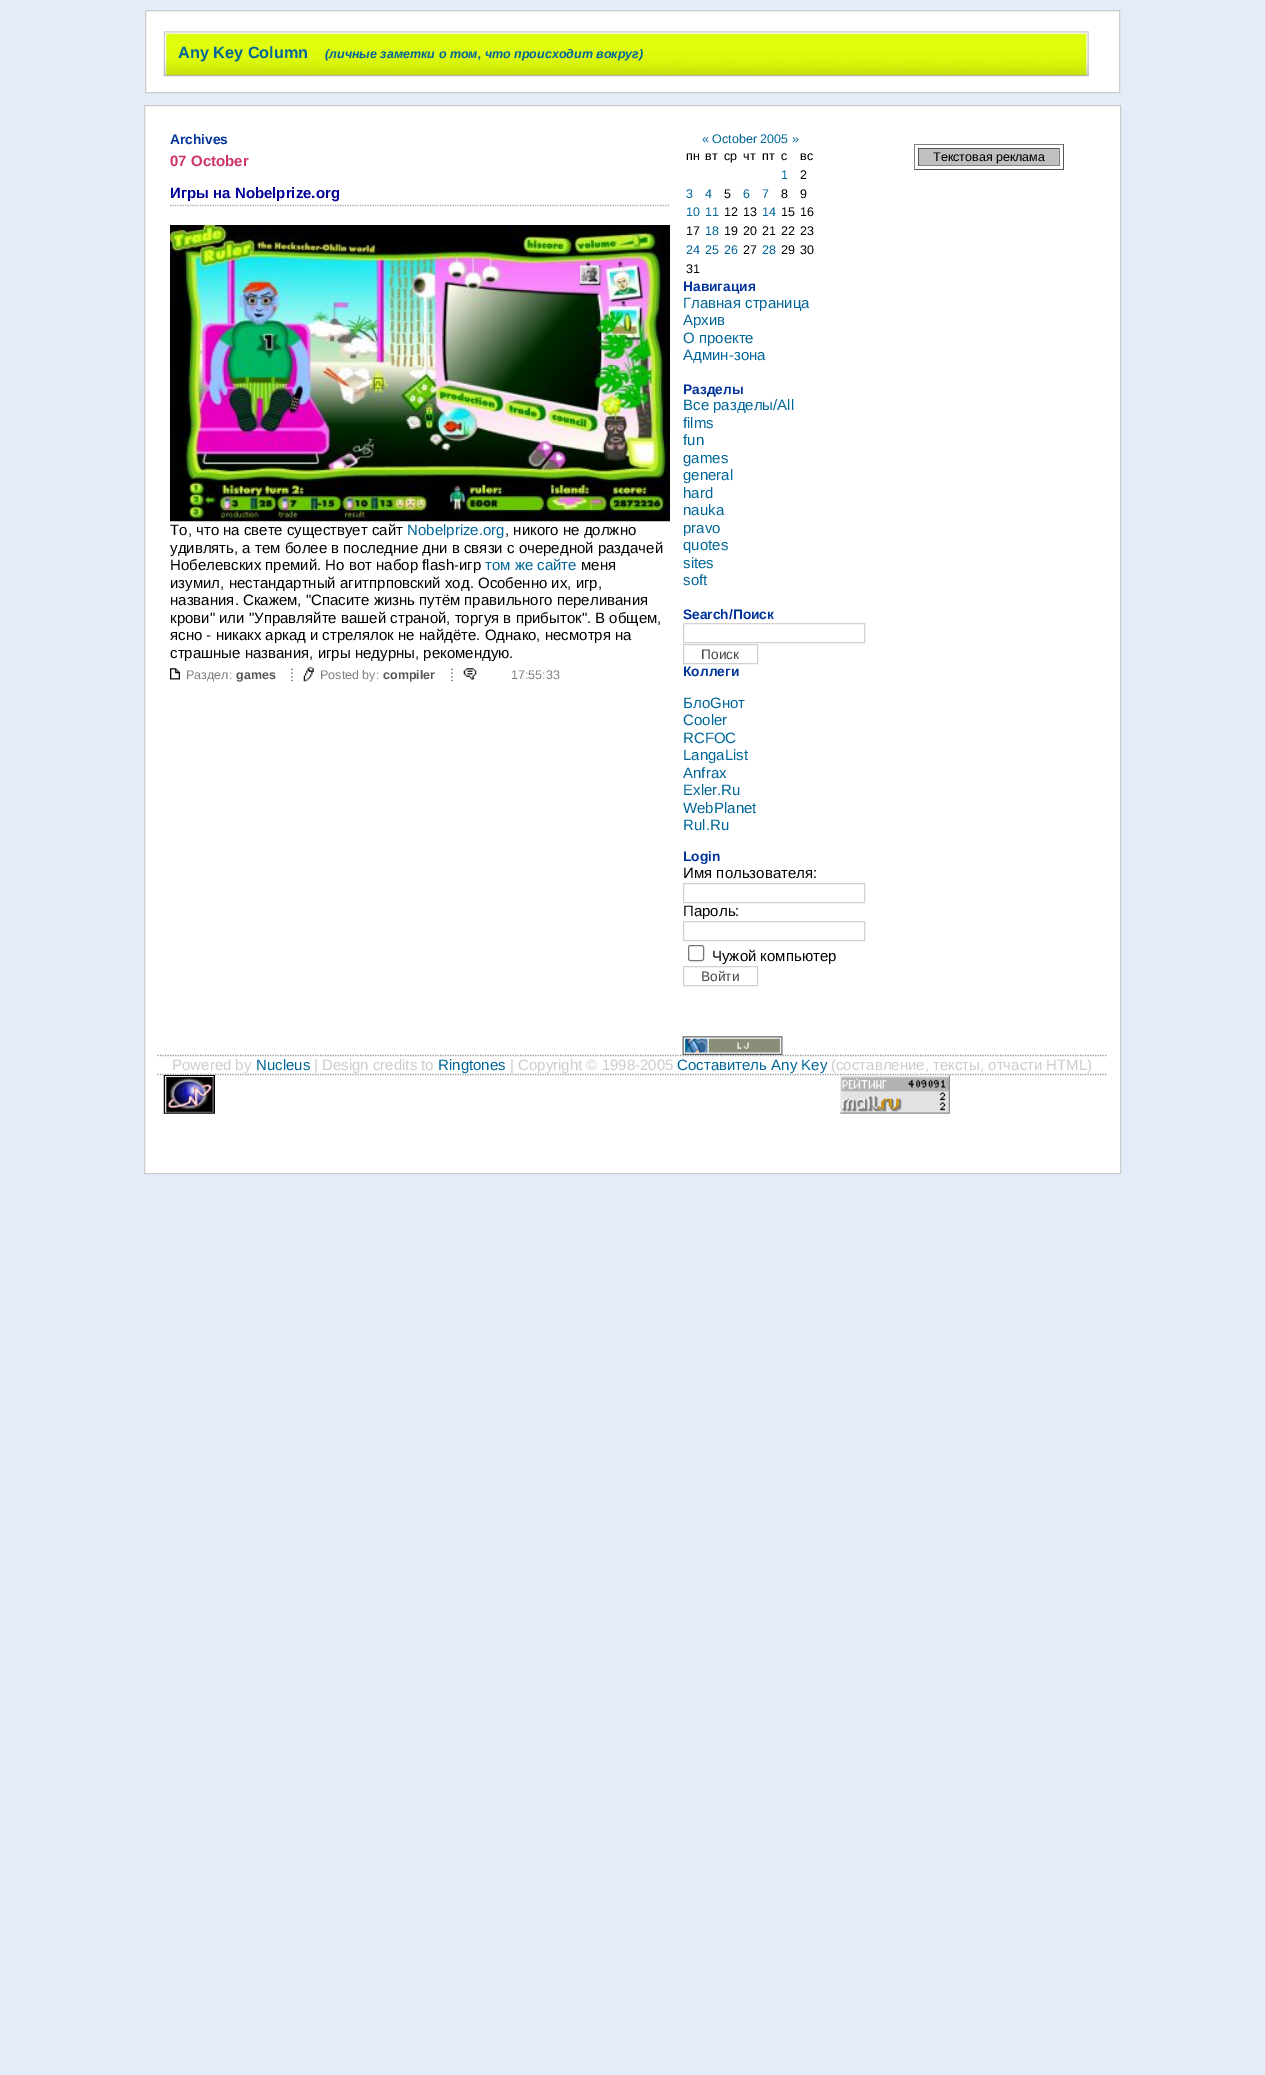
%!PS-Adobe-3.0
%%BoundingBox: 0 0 1265 2075
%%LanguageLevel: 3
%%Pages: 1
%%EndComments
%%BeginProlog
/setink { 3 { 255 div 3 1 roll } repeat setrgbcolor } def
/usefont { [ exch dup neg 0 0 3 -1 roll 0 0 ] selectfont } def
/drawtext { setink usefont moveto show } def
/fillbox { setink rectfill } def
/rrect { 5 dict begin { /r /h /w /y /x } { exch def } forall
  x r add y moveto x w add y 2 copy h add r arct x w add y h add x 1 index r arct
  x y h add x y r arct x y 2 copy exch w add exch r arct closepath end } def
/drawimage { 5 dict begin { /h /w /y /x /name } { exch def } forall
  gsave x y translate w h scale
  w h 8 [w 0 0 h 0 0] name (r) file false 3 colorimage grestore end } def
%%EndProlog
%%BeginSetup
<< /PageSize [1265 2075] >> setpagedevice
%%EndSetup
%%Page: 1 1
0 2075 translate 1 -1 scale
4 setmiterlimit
0 0 1265 2075 229 236 249 fillbox
255 255 255 setink
145.5 10.5 moveto 1119.5 10.5 lineto 1119.5 92.5 lineto 145.5 92.5 lineto closepath gsave fill grestore
204 204 204 setink
stroke
(assets/img1.rgb) 163 30 926 47 drawimage
(Any Key Column) 178 58 /LiberationSans-Bold 16.25 0 102 153 drawtext
(\(личные заметки о том, что происходит вокруг\)) 325 58 /LiberationSans-BoldItalic 12.5 0 102 153 drawtext
255 255 255 setink
144.5 105.5 moveto 1120.5 105.5 lineto 1120.5 1173.5 lineto 144.5 1173.5 lineto closepath gsave fill grestore
204 204 204 setink
stroke
(Archives) 170 144 /LiberationSans-Bold 13.75 0 51 153 drawtext
(07 October) 170 166 /LiberationSans-Bold 15 204 51 102 drawtext
169 169 169 setink
1.2 setlinewidth
[1.25 1.25] 0 setdash
170 205.5 moveto 670 205.5 lineto stroke
(Игры на Nobelprize.org) 170 198 /LiberationSans-Bold 15 0 0 153 drawtext
(assets/img2.rgb) 170 225 500 297 drawimage
(То, что на свете существует сайт) 170 535 /LiberationSans-Regular 15 0 0 0 drawtext
(Nobelprize.org) 407 535 /LiberationSans-Regular 15 0 102 153 drawtext
(, никого не должно) 505 535 /LiberationSans-Regular 15 0 0 0 drawtext
(удивлять, а тем более в последние дни в связи с очередной раздачей) 170 553 /LiberationSans-Regular 15 0 0 0 drawtext
(Нобелевских премий. Но вот набор flash-игр) 170 570 /LiberationSans-Regular 15 0 0 0 drawtext
(том же сайте) 485 570 /LiberationSans-Regular 15 0 102 153 drawtext
(меня) 581 570 /LiberationSans-Regular 15 0 0 0 drawtext
(изумил, нестандартный агитпрповский ход. Особенно их, игр,) 170 588 /LiberationSans-Regular 15 0 0 0 drawtext
(названия. Скажем, "Спасите жизнь путём правильного переливания) 170 605 /LiberationSans-Regular 15 0 0 0 drawtext
(крови" или "Управляйте вашей страной, торгуя в прибыток". В общем,) 170 623 /LiberationSans-Regular 15 0 0 0 drawtext
(ясно - никакх аркад и стрелялок не найдёте. Однако, несмотря на) 170 640 /LiberationSans-Regular 15 0 0 0 drawtext
(страшные названия, игры недурны, рекомендую.) 170 658 /LiberationSans-Regular 15 0 0 0 drawtext
(assets/img3.rgb) 170 668 10 12 drawimage
(Раздел:) 186 679 /LiberationSans-Regular 12.5 128 128 128 drawtext
(games) 236 679 /LiberationSans-Bold 12.5 85 85 85 drawtext
(assets/img4.rgb) 291 668 2 14 drawimage
(assets/img5.rgb) 303 667 11 15 drawimage
(Posted by:) 320 679 /LiberationSans-Regular 12.5 128 128 128 drawtext
(compiler) 383 679 /LiberationSans-Bold 12.5 85 85 85 drawtext
(assets/img4.rgb) 451 668 2 14 drawimage
(assets/img6.rgb) 463 668 14 12 drawimage
(17:55:33) 511 679 /LiberationSans-Regular 12.5 128 128 128 drawtext
(« October 2005 ») 702 143 /LiberationSans-Regular 12.5 0 102 153 drawtext
(пн) 686 160 /LiberationSans-Regular 12.5 0 0 0 drawtext
(вт) 705 160 /LiberationSans-Regular 12.5 0 0 0 drawtext
(ср) 724 160 /LiberationSans-Regular 12.5 0 0 0 drawtext
(чт) 743 160 /LiberationSans-Regular 12.5 0 0 0 drawtext
(пт) 762 160 /LiberationSans-Regular 12.5 0 0 0 drawtext
(с) 781 160 /LiberationSans-Regular 12.5 0 0 0 drawtext
(вс) 800 160 /LiberationSans-Regular 12.5 0 0 0 drawtext
(1) 781 179 /LiberationSans-Regular 12.5 0 102 153 drawtext
(2) 800 179 /LiberationSans-Regular 12.5 0 0 0 drawtext
(3) 686 198 /LiberationSans-Regular 12.5 0 102 153 drawtext
(4) 705 198 /LiberationSans-Regular 12.5 0 102 153 drawtext
(5) 724 198 /LiberationSans-Regular 12.5 0 0 0 drawtext
(6) 743 198 /LiberationSans-Regular 12.5 0 102 153 drawtext
(7) 762 198 /LiberationSans-Regular 12.5 0 102 153 drawtext
(8) 781 198 /LiberationSans-Regular 12.5 0 0 0 drawtext
(9) 800 198 /LiberationSans-Regular 12.5 0 0 0 drawtext
(10) 686 216 /LiberationSans-Regular 12.5 0 102 153 drawtext
(11) 705 216 /LiberationSans-Regular 12.5 0 102 153 drawtext
(12) 724 216 /LiberationSans-Regular 12.5 0 0 0 drawtext
(13) 743 216 /LiberationSans-Regular 12.5 0 0 0 drawtext
(14) 762 216 /LiberationSans-Regular 12.5 0 102 153 drawtext
(15) 781 216 /LiberationSans-Regular 12.5 0 0 0 drawtext
(16) 800 216 /LiberationSans-Regular 12.5 0 0 0 drawtext
(17) 686 235 /LiberationSans-Regular 12.5 0 0 0 drawtext
(18) 705 235 /LiberationSans-Regular 12.5 0 102 153 drawtext
(19) 724 235 /LiberationSans-Regular 12.5 0 0 0 drawtext
(20) 743 235 /LiberationSans-Regular 12.5 0 0 0 drawtext
(21) 762 235 /LiberationSans-Regular 12.5 0 0 0 drawtext
(22) 781 235 /LiberationSans-Regular 12.5 0 0 0 drawtext
(23) 800 235 /LiberationSans-Regular 12.5 0 0 0 drawtext
(24) 686 254 /LiberationSans-Regular 12.5 0 102 153 drawtext
(25) 705 254 /LiberationSans-Regular 12.5 0 102 153 drawtext
(26) 724 254 /LiberationSans-Regular 12.5 0 102 153 drawtext
(27) 743 254 /LiberationSans-Regular 12.5 0 0 0 drawtext
(28) 762 254 /LiberationSans-Regular 12.5 0 102 153 drawtext
(29) 781 254 /LiberationSans-Regular 12.5 0 0 0 drawtext
(30) 800 254 /LiberationSans-Regular 12.5 0 0 0 drawtext
(31) 686 273 /LiberationSans-Regular 12.5 0 0 0 drawtext
(Навигация) 683 291 /LiberationSans-Bold 13.75 0 51 153 drawtext
(Главная страница) 683 308 /LiberationSans-Regular 15 0 102 153 drawtext
(Архив) 683 325 /LiberationSans-Regular 15 0 102 153 drawtext
(О проекте) 683 343 /LiberationSans-Regular 15 0 102 153 drawtext
(Админ-зона) 683 360 /LiberationSans-Regular 15 0 102 153 drawtext
(Разделы) 683 394 /LiberationSans-Bold 13.75 0 51 153 drawtext
(Все разделы/All) 683 410 /LiberationSans-Regular 15 0 102 153 drawtext
(films) 683 428 /LiberationSans-Regular 15 0 102 153 drawtext
(fun) 683 445 /LiberationSans-Regular 15 0 102 153 drawtext
(games) 683 463 /LiberationSans-Regular 15 0 102 153 drawtext
(general) 683 480 /LiberationSans-Regular 15 0 102 153 drawtext
(hard) 683 498 /LiberationSans-Regular 15 0 102 153 drawtext
(nauka) 683 515 /LiberationSans-Regular 15 0 102 153 drawtext
(pravo) 683 533 /LiberationSans-Regular 15 0 102 153 drawtext
(quotes) 683 550 /LiberationSans-Regular 15 0 102 153 drawtext
(sites) 683 568 /LiberationSans-Regular 15 0 102 153 drawtext
(soft) 683 585 /LiberationSans-Regular 15 0 102 153 drawtext
(Search/Поиск) 683 619 /LiberationSans-Bold 13.75 0 51 153 drawtext
212 210 207 setink
1 setlinewidth
[] 0 setdash
683.5 623.5 181 19 rectstroke
683.5 644.5 74 19 rectstroke
(Поиск) 701 659 /LiberationSans-Regular 13.75 73 73 73 drawtext
(Коллеги) 683 676 /LiberationSans-Bold 13.75 0 51 153 drawtext
(БлоGнот) 683 708 /LiberationSans-Regular 15 0 102 153 drawtext
(Cooler) 683 725 /LiberationSans-Regular 15 0 102 153 drawtext
(RCFOC) 683 743 /LiberationSans-Regular 15 0 102 153 drawtext
(LangaList) 683 760 /LiberationSans-Regular 15 0 102 153 drawtext
(Anfrax) 683 778 /LiberationSans-Regular 15 0 102 153 drawtext
(Exler.Ru) 683 795 /LiberationSans-Regular 15 0 102 153 drawtext
(WebPlanet) 683 813 /LiberationSans-Regular 15 0 102 153 drawtext
(Rul.Ru) 683 830 /LiberationSans-Regular 15 0 102 153 drawtext
(Login) 683 861 /LiberationSans-Bold 13.75 0 51 153 drawtext
(Имя пользователя:) 683 878 /LiberationSans-Regular 15 0 0 0 drawtext
212 210 207 setink
683.5 883.5 181 19 rectstroke
(Пароль:) 683 916 /LiberationSans-Regular 15 0 0 0 drawtext
212 210 207 setink
683.5 921.5 181 19 rectstroke
118 118 118 setink
688.5 945.5 15 15 2 rrect stroke
(Чужой компьютер) 712 961 /LiberationSans-Regular 15 0 0 0 drawtext
212 210 207 setink
683.5 966.5 74 19 rectstroke
(Войти) 701 981 /LiberationSans-Regular 13.75 73 73 73 drawtext
153 153 153 setink
1.2 setlinewidth
[1.25 1.25] 0 setdash
157.5 1055.5 moveto 1107.5 1055.5 lineto stroke
(assets/img7.rgb) 682 1036 101 19 drawimage
914 144 150 1 128 128 128 fillbox
1063 144 1 26 85 85 85 fillbox
914 169 150 1 85 85 85 fillbox
914 144 1 26 128 128 128 fillbox
919 149 140 16 192 192 192 fillbox
918 148 142 1 85 85 85 fillbox
1059 148 1 18 128 128 128 fillbox
918 165 142 1 128 128 128 fillbox
918 148 1 18 85 85 85 fillbox
(Текстовая реклама) 933 161 /LiberationSans-Regular 12.5 0 0 0 drawtext
153 153 153 setink
157.5 1074.5 moveto 1107.5 1074.5 lineto stroke
(Powered by) 172 1070 /LiberationSans-Regular 15 204 204 204 drawtext
(Nucleus) 256 1070 /LiberationSans-Regular 15 0 102 153 drawtext
(| Design credits to) 314 1070 /LiberationSans-Regular 15 204 204 204 drawtext
(Ringtones) 438 1070 /LiberationSans-Regular 15 0 102 153 drawtext
(| Copyright © 1998-2005) 510 1070 /LiberationSans-Regular 15 204 204 204 drawtext
(Составитель Any Key) 677 1070 /LiberationSans-Regular 15 0 102 153 drawtext
(\(составление, тексты, отчасти HTML\)) 831 1070 /LiberationSans-Regular 15 204 204 204 drawtext
(assets/img8.rgb) 163 1075 52 39 drawimage
(assets/img9.rgb) 840 1075 110 39 drawimage
showpage
%%EOF
